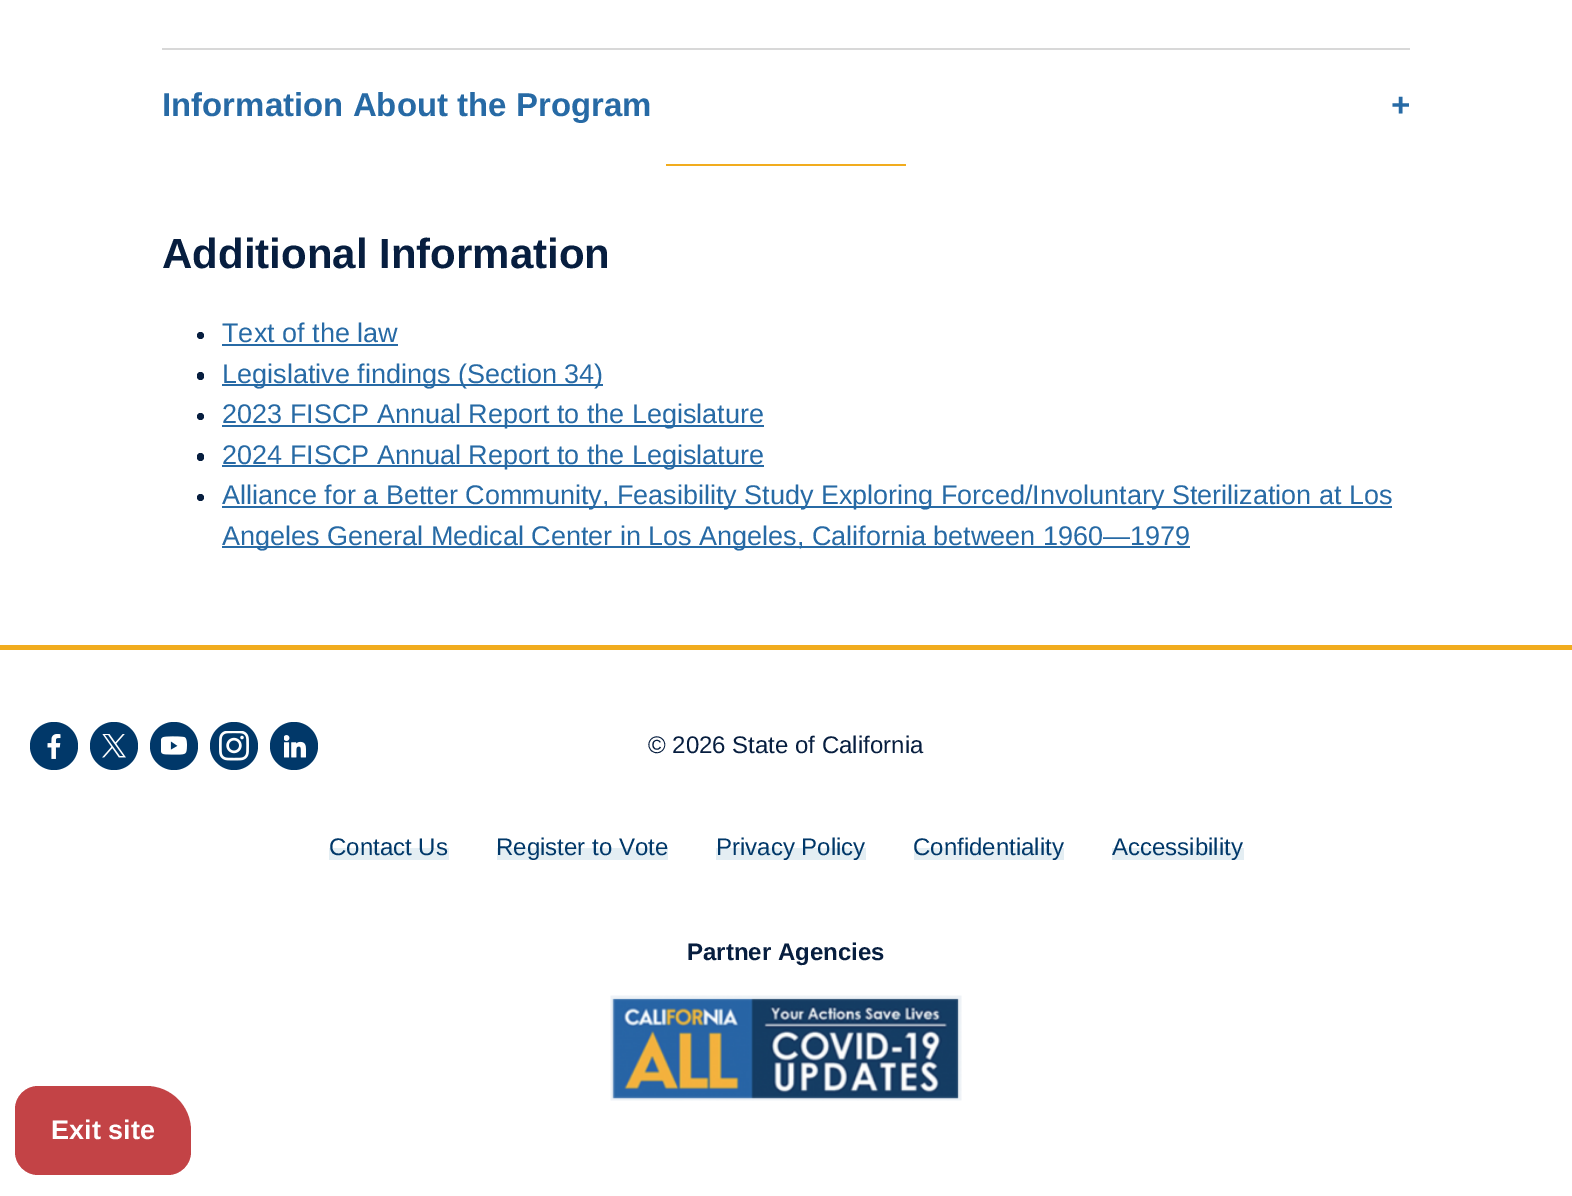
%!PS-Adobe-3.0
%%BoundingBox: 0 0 1572 1196
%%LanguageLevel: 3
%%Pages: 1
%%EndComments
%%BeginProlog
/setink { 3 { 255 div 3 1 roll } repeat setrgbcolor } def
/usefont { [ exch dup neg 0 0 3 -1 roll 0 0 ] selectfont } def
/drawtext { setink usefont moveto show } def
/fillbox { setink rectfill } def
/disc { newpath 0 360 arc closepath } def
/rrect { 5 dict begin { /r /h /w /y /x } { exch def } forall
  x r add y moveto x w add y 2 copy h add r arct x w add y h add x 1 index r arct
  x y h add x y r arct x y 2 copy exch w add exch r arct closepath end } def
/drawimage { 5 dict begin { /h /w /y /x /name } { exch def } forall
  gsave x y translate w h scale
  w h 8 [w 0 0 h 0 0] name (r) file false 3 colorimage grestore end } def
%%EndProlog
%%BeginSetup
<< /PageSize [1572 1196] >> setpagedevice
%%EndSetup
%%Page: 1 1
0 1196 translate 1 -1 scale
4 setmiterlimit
0 0 1572 1196 255 255 255 fillbox
162 48 1248 2 216 216 216 fillbox
(Information About the Program) 162 116 /LiberationSans-Bold 33 39 106 165 drawtext
(+) 1391 116 /LiberationSans-Bold 33 39 106 165 drawtext
666 164 240 2 241 172 30 fillbox
(Additional Information) 162 268 /LiberationSans-Bold 42 7 30 63 drawtext
200.5 335.5 3.5 disc fill
(Text of the law) 222 342 /LiberationSans-Regular 27 39 106 165 drawtext
222 344 176 2 39 106 165 fillbox
7 30 63 setink
197 372 7 8 3.5 rrect fill
222 384 381 2 39 106 165 fillbox
(Legislative findings \(Section 34\)) 222 383 /LiberationSans-Regular 27 39 106 165 drawtext
7 30 63 setink
200.5 416.5 3.5 disc fill
222 425 542 2 39 106 165 fillbox
(2023 FISCP Annual Report to the Legislature) 222 423 /LiberationSans-Regular 27 39 106 165 drawtext
7 30 63 setink
197 453 7 8 3.5 rrect fill
222 465 542 2 39 106 165 fillbox
(2024 FISCP Annual Report to the Legislature) 222 464 /LiberationSans-Regular 27 39 106 165 drawtext
7 30 63 setink
200.5 497.5 3.5 disc fill
222 506 1170 2 39 106 165 fillbox
(Alliance for a Better Community, Feasibility Study Exploring Forced/Involuntary Sterilization at Los) 222 504 /LiberationSans-Regular 27 39 106 165 drawtext
222 546 968 2 39 106 165 fillbox
(Angeles General Medical Center in Los Angeles, California between 1960—1979) 222 545 /LiberationSans-Regular 27 39 106 165 drawtext
0 645 1572 5 241 172 30 fillbox
1 56 105 setink
54 746 24 disc fill
(assets/img1.rgb) 47 734 14 25 drawimage
114 746 24 disc fill
(assets/img2.rgb) 102 734 24 24 drawimage
174 746 24 disc fill
(assets/img3.rgb) 161 736 26 19 drawimage
234 746 24 disc fill
(assets/img4.rgb) 219 731 30 30 drawimage
294 746 24 disc fill
(assets/img5.rgb) 284 735 22 23 drawimage
(© 2026 State of California) 648 753 /LiberationSans-Regular 24 7 30 63 drawtext
329 848 120 12 228 238 243 fillbox
(Contact Us) 329 855 /LiberationSans-Regular 24 1 56 105 drawtext
497 848 171 12 228 238 243 fillbox
(Register to Vote) 496 855 /LiberationSans-Regular 24 1 56 105 drawtext
716 848 150 12 228 238 243 fillbox
(Privacy Policy) 716 855 /LiberationSans-Regular 24 1 56 105 drawtext
914 848 150 12 228 238 243 fillbox
(Confidentiality) 913 855 /LiberationSans-Regular 24 1 56 105 drawtext
1112 848 132 12 228 238 243 fillbox
(Accessibility) 1112 855 /LiberationSans-Regular 24 1 56 105 drawtext
(Partner Agencies) 687 960 /LiberationSans-Bold 24 7 30 63 drawtext
(assets/img6.rgb) 610 995 352 106 drawimage
195 67 70 setink
38 1086 moveto 146 1086 lineto 171 1086 191 1106 191 1131 curveto 191 1152 lineto 191 1164.5 180.5 1175 168 1175 curveto 38 1175 lineto 25.5 1175 15 1164.5 15 1152 curveto 15 1109 lineto 15 1096.5 25.5 1086 38 1086 curveto closepath fill
(Exit site) 51 1139 /LiberationSans-Bold 27 255 255 255 drawtext
showpage
%%EOF
